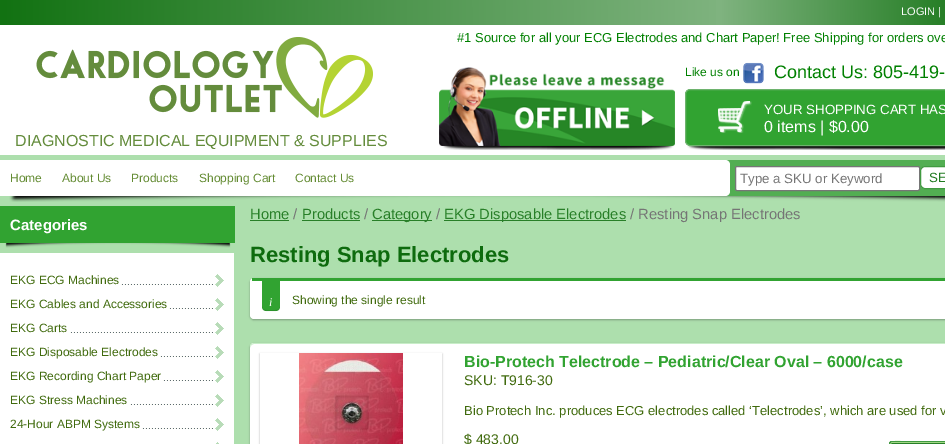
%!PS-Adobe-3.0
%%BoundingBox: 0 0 945 444
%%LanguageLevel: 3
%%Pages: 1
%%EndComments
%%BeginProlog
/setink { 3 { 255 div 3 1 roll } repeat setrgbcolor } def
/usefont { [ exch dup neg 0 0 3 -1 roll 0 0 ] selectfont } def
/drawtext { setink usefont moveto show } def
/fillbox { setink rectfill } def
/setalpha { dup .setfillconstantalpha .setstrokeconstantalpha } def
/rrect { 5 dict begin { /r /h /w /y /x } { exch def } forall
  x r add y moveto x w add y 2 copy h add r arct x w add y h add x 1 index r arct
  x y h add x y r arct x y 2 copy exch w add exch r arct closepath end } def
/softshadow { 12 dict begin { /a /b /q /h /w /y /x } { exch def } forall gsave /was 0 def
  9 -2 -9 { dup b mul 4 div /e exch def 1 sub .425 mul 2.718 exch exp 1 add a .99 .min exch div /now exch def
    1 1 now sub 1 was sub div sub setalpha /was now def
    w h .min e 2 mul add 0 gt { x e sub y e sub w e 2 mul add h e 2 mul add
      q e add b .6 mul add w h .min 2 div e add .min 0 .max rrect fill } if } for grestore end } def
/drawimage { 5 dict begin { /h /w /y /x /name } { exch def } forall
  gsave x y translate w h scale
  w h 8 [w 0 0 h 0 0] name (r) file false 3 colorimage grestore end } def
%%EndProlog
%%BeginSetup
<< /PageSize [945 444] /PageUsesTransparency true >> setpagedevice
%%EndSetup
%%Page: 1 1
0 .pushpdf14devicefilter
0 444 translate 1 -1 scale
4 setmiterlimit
0 0 945 444 173 223 173 fillbox
gsave 0 0 moveto 945 0 lineto 945 25 lineto 0 25 lineto closepath clip newpath
<< /ShadingType 2 /ColorSpace /DeviceRGB /Coords [0 13 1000 12] /Extend [true true] /Function << /FunctionType 3 /Domain [0 1] /Functions [<< /FunctionType 2 /Domain [0 1] /C0 [0.071 0.447 0.071] /C1 [0.498 0.702 0.498] /N 1 >> << /FunctionType 2 /Domain [0 1] /C0 [0.498 0.702 0.498] /C1 [0.071 0.447 0.071] /N 1 >>] /Bounds [0.72] /Encode [0 1 0 1] >> >> shfill grestore
(LOGIN |) 901 15 /LiberationSans-Regular 11 255 255 255 drawtext
0 25 945 130 255 255 255 fillbox
(#1 Source for all your ECG Electrodes and Chart Paper! Free Shipping for orders ove) 457 42 /LiberationSans-Regular 13 0 128 0 drawtext
(assets/img1.rgb) 442 145 232 5 drawimage
(assets/img2.rgb) 439 67 236 79 drawimage
(Like us on) 685 76 /LiberationSans-Regular 12 0 128 0 drawtext
(assets/img3.rgb) 743 62 21 22 drawimage
(Contact Us: 805-419-) 774 78 /LiberationSans-Regular 18 0 128 0 drawtext
(assets/img5.rgb) 687 145 258 5 drawimage
49 163 49 setink
685.5 89.5 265 56 4.5 rrect gsave fill grestore
110 179 110 setink
stroke
(assets/img4.rgb) 718 101 34 32 drawimage
(YOUR SHOPPING CART HAS) 764 114 /LiberationSans-Regular 13.3 255 255 255 drawtext
(0 items | $0.00) 764 132 /LiberationSans-Regular 16 255 255 255 drawtext
(assets/img6.rgb) 36 37 337 81 drawimage
(DIAGNOSTIC MEDICAL EQUIPMENT & SUPPLIES) 15 146 /LiberationSans-Regular 16 100 140 60 drawtext
725 160 220 36 82 174 82 fillbox
255 255 255 setink
0 160 moveto 725 160 lineto 728 160 730 162 730 165 curveto 730 191 lineto 730 194 728 196 725 196 curveto 0 196 lineto closepath fill
(Home) 10 182 /LiberationSans-Regular 12 99 139 50 drawtext
(About Us) 62 182 /LiberationSans-Regular 12 99 139 50 drawtext
(Products) 131 182 /LiberationSans-Regular 12 99 139 50 drawtext
(Shopping Cart) 199 182 /LiberationSans-Regular 12 99 139 50 drawtext
(Contact Us) 295 182 /LiberationSans-Regular 12 99 139 50 drawtext
255 255 255 setink
735.5 166.5 184 24 1.5 rrect gsave fill grestore
118 118 118 setink
stroke
(Type a SKU or Keyword) 740 183 /LiberationSans-Regular 13.3 117 117 117 drawtext
255 255 255 setink
920.5 166.5 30 22 4.5 rrect gsave fill grestore
65 154 65 setink
stroke
(SE) 929 182 /LiberationSans-Regular 13.3 32 122 32 drawtext
(assets/img7.rgb) 9 196 936 6 drawimage
0 206 235 37 49 163 49 fillbox
(Categories) 10 230 /LiberationSans-Bold 15 255 255 255 drawtext
(assets/img8.rgb) 5 243 226 5 drawimage
0 253 234 191 255 255 255 fillbox
(assets/img9.rgb) 215 274 9 13 drawimage
(assets/img10.rgb) 121 284 92 1 drawimage
(EKG ECG Machines) 10 284 /LiberationSans-Regular 12 64 106 13 drawtext
(assets/img9.rgb) 215 298 9 13 drawimage
(assets/img11.rgb) 169 308 44 1 drawimage
(EKG Cables and Accessories) 10 308 /LiberationSans-Regular 12 64 106 13 drawtext
(assets/img9.rgb) 215 322 9 13 drawimage
(assets/img12.rgb) 70 332 143 1 drawimage
(EKG Carts) 10 332 /LiberationSans-Regular 12 64 106 13 drawtext
(assets/img9.rgb) 215 346 9 13 drawimage
(assets/img13.rgb) 160 356 53 1 drawimage
(EKG Disposable Electrodes) 10 356 /LiberationSans-Regular 12 64 106 13 drawtext
(assets/img9.rgb) 215 370 9 13 drawimage
(assets/img14.rgb) 163 380 50 1 drawimage
(EKG Recording Chart Paper) 10 380 /LiberationSans-Regular 12 64 106 13 drawtext
(assets/img9.rgb) 215 394 9 13 drawimage
(assets/img15.rgb) 130 404 83 1 drawimage
(EKG Stress Machines) 10 404 /LiberationSans-Regular 12 64 106 13 drawtext
(assets/img9.rgb) 215 418 9 13 drawimage
(assets/img16.rgb) 142 428 71 1 drawimage
(24-Hour ABPM Systems) 10 428 /LiberationSans-Regular 12 64 106 13 drawtext
(assets/img17.rgb) 216 442 3 2 drawimage
(Home) 250 219 /LiberationSans-Regular 14.75 40 127 40 drawtext
250 220 39 1 40 127 40 fillbox
(/) 293 219 /LiberationSans-Regular 14.75 117 117 117 drawtext
(Products) 302 219 /LiberationSans-Regular 14.75 40 127 40 drawtext
302 220 58 1 40 127 40 fillbox
(/) 364 219 /LiberationSans-Regular 14.75 117 117 117 drawtext
372 220 60 1 40 127 40 fillbox
(Category) 372 219 /LiberationSans-Regular 14.75 40 127 40 drawtext
(/) 436 219 /LiberationSans-Regular 14.75 117 117 117 drawtext
444 220 182 1 40 127 40 fillbox
(EKG Disposable Electrodes) 444 219 /LiberationSans-Regular 14.75 40 127 40 drawtext
(/ Resting Snap Electrodes) 630 219 /LiberationSans-Regular 14.75 117 117 117 drawtext
(Resting Snap Electrodes) 250 262 /LiberationSans-Bold 22 14 107 14 drawtext
0 0 0 setink
250 279 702 41 4 1 0.3 softshadow
255 255 255 setink
250 278 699 41 4 rrect fill
252 278 693 3 49 163 49 fillbox
262 281 moveto 280 281 lineto 280 307 lineto 280 309 278 311 276 311 curveto 266 311 lineto 264 311 262 309 262 307 curveto closepath fill
0.1 setalpha
0 0 0 setink
262 306 moveto 262 312 266.5 311 271 311 curveto 275.5 311 280 312 280 306 curveto 280 311 274 310 271 310 curveto 268 310 262 311 262 306 curveto closepath fill
1 setalpha
(i) 269 306 /LiberationSerif-Italic 12 255 255 255 drawtext
(Showing the single result) 292 304 /LiberationSans-Regular 12 64 106 13 drawtext
0 0 0 setink
250 344 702 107 4 1 0.3 softshadow
255 255 255 setink
250 343 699 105 4 rrect fill
200 238 200 setink
254 344 moveto 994 344 lineto 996 344 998 346 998 348 curveto 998 347 lineto 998 345 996 343 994 343 curveto 254 343 lineto 252 343 250 345 250 347 curveto 250 348 lineto 250 346 252 344 254 344 curveto closepath fill
gsave
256 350 moveto 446 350 lineto 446 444 lineto 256 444 lineto closepath 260 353 moveto 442 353 lineto 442 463 lineto 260 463 lineto closepath eoclip newpath
0 0 0 setink
260 354 182 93 0 1 0.3 softshadow
grestore
(assets/img18.rgb) 299 353 104 91 drawimage
(Bio-Protech Telectrode – Pediatric/Clear Oval – 6000/case) 464 367 /LiberationSans-Bold 16 49 163 49 drawtext
(SKU: T916-30) 464 385 /LiberationSans-Regular 14 64 106 13 drawtext
(Bio Protech Inc. produces ECG electrodes called ‘Telectrodes’, which are used for v) 464 415 /LiberationSans-Regular 13 64 106 13 drawtext
($ 483.00) 464 444 /LiberationSans-Regular 14 64 106 13 drawtext
40 127 40 setink
889 441 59 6 3 rrect fill
193 237 156 setink
892 443 moveto 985 443 lineto 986 443 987 444 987 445 curveto 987 444 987 442 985 442 curveto 908 442 lineto 906 442 890 438 890 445 curveto 890 444 891 443 892 443 curveto closepath fill
65 154 65 setink
889.5 441.5 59 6 2.5 rrect stroke
.poppdf14devicefilter showpage
%%EOF
